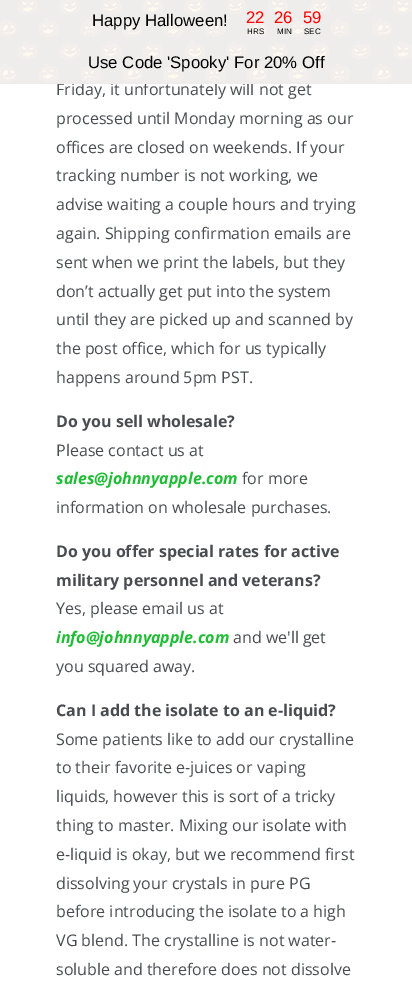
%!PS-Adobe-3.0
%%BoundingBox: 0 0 412 994
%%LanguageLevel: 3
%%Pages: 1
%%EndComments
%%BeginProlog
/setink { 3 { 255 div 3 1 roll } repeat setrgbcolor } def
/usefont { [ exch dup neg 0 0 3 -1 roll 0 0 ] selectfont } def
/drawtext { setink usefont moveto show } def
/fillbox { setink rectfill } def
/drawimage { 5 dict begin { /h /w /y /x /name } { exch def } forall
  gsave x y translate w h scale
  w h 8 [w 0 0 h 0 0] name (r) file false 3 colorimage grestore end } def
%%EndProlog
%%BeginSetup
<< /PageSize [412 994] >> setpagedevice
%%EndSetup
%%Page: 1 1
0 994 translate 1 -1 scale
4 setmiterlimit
0 0 412 994 255 255 255 fillbox
(Friday, it unfortunately will not get) 56 95 /OpenSans-Regular 16 73 76 80 drawtext
(assets/img1.rgb) 0 0 412 84 drawimage
(Happy Halloween!) 92 26 /LiberationSans-Regular 16.75 0 0 0 drawtext
(22) 246 23 /LiberationSans-Regular 16.75 255 0 0 drawtext
(26) 274 23 /LiberationSans-Regular 16.75 255 0 0 drawtext
(59) 303 23 /LiberationSans-Regular 16.75 255 0 0 drawtext
(HRS) 247 34 /LiberationSans-Regular 8 0 0 0 drawtext
(MIN) 277 34 /LiberationSans-Regular 8 0 0 0 drawtext
(SEC) 304 34 /LiberationSans-Regular 8 0 0 0 drawtext
(Use Code 'Spooky' For 20% Off) 88 68 /LiberationSans-Regular 16.75 0 0 0 drawtext
(processed until Monday morning as our) 56 124 /OpenSans-Regular 16 73 76 80 drawtext
(offices are closed on weekends. If your) 56 153 /OpenSans-Regular 16 73 76 80 drawtext
(tracking number is not working, we) 56 181 /OpenSans-Regular 16 73 76 80 drawtext
(advise waiting a couple hours and trying) 56 210 /OpenSans-Regular 16 73 76 80 drawtext
(again. Shipping confirmation emails are) 56 239 /OpenSans-Regular 16 73 76 80 drawtext
(sent when we print the labels, but they) 56 268 /OpenSans-Regular 16 73 76 80 drawtext
(don’t actually get put into the system) 56 297 /OpenSans-Regular 16 73 76 80 drawtext
(until they are picked up and scanned by) 56 325 /OpenSans-Regular 16 73 76 80 drawtext
(the post office, which for us typically) 56 354 /OpenSans-Regular 16 73 76 80 drawtext
(happens around 5pm PST.) 56 383 /OpenSans-Regular 16 73 76 80 drawtext
(Do you sell wholesale?) 56 427 /OpenSans-Bold 16 73 76 80 drawtext
(Please contact us at) 56 456 /OpenSans-Regular 16 73 76 80 drawtext
(sales@johnnyapple.com) 56 484 /OpenSans-BoldItalic 16 30 189 52 drawtext
(for more) 242 484 /OpenSans-Regular 16 73 76 80 drawtext
(information on wholesale purchases.) 56 513 /OpenSans-Regular 16 73 76 80 drawtext
(Do you offer special rates for active) 56 557 /OpenSans-Bold 16 73 76 80 drawtext
(military personnel and veterans?) 56 586 /OpenSans-Bold 16 73 76 80 drawtext
(Yes, please email us at) 56 614 /OpenSans-Regular 16 73 76 80 drawtext
(info@johnnyapple.com) 56 643 /OpenSans-BoldItalic 16 30 189 52 drawtext
(and we'll get) 233 643 /OpenSans-Regular 16 73 76 80 drawtext
(you squared away.) 56 672 /OpenSans-Regular 16 73 76 80 drawtext
(Can I add the isolate to an e-liquid?) 56 716 /OpenSans-Bold 16 73 76 80 drawtext
(Some patients like to add our crystalline) 56 745 /OpenSans-Regular 16 73 76 80 drawtext
(to their favorite e-juices or vaping) 56 773 /OpenSans-Regular 16 73 76 80 drawtext
(liquids, however this is sort of a tricky) 56 802 /OpenSans-Regular 16 73 76 80 drawtext
(thing to master. Mixing our isolate with) 56 831 /OpenSans-Regular 16 73 76 80 drawtext
(e-liquid is okay, but we recommend first) 56 860 /OpenSans-Regular 16 73 76 80 drawtext
(dissolving your crystals in pure PG) 56 889 /OpenSans-Regular 16 73 76 80 drawtext
(before introducing the isolate to a high) 56 917 /OpenSans-Regular 16 73 76 80 drawtext
(VG blend. The crystalline is not water-) 56 946 /OpenSans-Regular 16 73 76 80 drawtext
(soluble and therefore does not dissolve) 56 975 /OpenSans-Regular 16 73 76 80 drawtext
showpage
%%EOF
